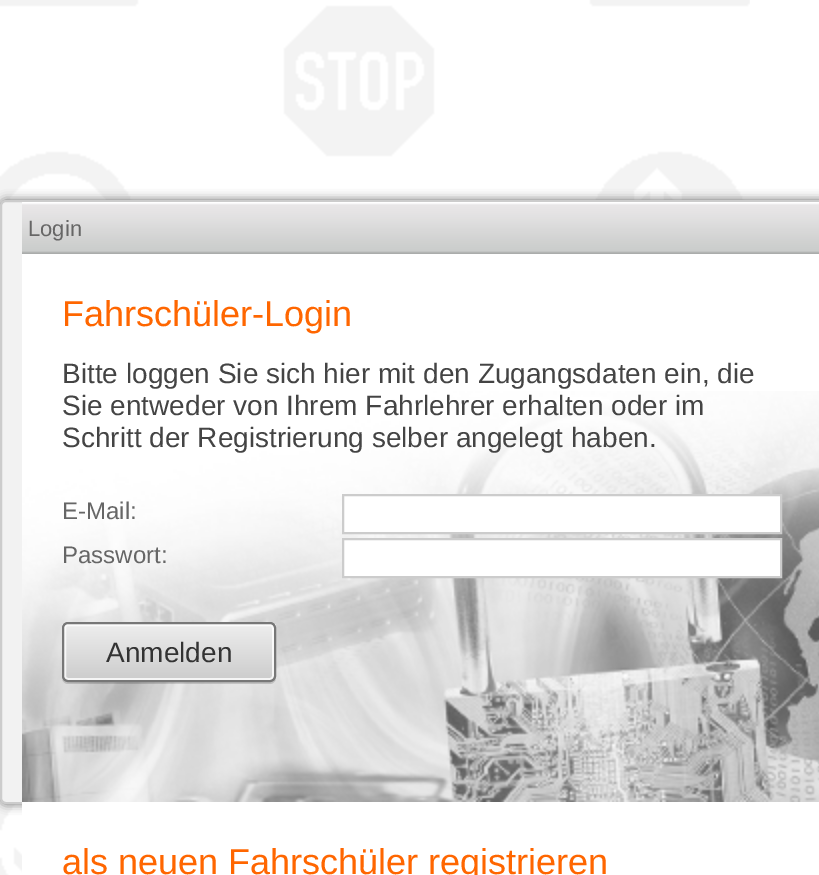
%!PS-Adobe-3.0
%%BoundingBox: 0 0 819 875
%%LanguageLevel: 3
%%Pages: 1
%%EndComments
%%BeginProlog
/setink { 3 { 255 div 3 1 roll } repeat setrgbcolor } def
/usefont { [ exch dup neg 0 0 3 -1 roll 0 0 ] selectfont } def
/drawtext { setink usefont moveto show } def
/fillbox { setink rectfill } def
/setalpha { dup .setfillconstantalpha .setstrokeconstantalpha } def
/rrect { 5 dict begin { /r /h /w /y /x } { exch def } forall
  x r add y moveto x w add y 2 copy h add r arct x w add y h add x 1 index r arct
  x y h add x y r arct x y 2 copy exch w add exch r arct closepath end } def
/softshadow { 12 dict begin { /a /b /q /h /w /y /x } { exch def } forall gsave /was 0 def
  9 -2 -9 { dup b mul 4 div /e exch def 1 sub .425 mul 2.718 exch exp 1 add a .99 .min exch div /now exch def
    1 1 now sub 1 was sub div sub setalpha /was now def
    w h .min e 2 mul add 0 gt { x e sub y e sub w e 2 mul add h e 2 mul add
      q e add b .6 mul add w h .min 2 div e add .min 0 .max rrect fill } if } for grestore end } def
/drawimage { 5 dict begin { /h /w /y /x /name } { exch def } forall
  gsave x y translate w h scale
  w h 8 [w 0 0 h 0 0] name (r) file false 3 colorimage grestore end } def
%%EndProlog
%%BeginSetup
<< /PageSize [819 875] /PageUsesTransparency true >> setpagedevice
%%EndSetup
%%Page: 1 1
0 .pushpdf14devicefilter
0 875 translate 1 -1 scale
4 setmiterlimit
0 0 819 875 255 255 255 fillbox
(assets/img1.rgb) 0 0 750 875 drawimage
102 102 102 setink
0 200 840 604 6 5 1 softshadow
242 242 242 setink
1 201 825 602 5 rrect gsave fill grestore
204 204 204 setink
2 setlinewidth
stroke
(assets/img2.rgb) 22 202 797 52 drawimage
(Login) 28 236 /LiberationSans-Regular 22 102 102 102 drawtext
22 254 797 137 255 255 255 fillbox
(assets/img3.rgb) 22 391 797 411 drawimage
(Fahrschüler-Login) 62 326 /LiberationSans-Regular 36 255 102 0 drawtext
(Bitte loggen Sie sich hier mit den Zugangsdaten ein, die) 62 383 /LiberationSans-Regular 28 68 68 68 drawtext
(Sie entweder von Ihrem Fahrlehrer erhalten oder im) 62 415 /LiberationSans-Regular 28 68 68 68 drawtext
(Schritt der Registrierung selber angelegt haben.) 62 447 /LiberationSans-Regular 28 68 68 68 drawtext
(E-Mail:) 62 519 /LiberationSans-Regular 24 102 102 102 drawtext
255 255 255 setink
343 495 moveto 781 495 lineto 781 533 lineto 343 533 lineto closepath gsave fill grestore
204 204 204 setink
stroke
(Passwort:) 62 563 /LiberationSans-Regular 24 102 102 102 drawtext
255 255 255 setink
343 539 moveto 781 539 lineto 781 577 lineto 343 577 lineto closepath gsave fill grestore
204 204 204 setink
stroke
0.15 setalpha
0 0 0 setink
62 676 moveto 62 678 lineto 62 681 65 684 68 684 curveto 270 684 lineto 273 684 276 681 276 678 curveto 276 676 lineto 276 679 273 682 270 682 curveto 68 682 lineto 65 682 62 679 62 676 curveto closepath fill
gsave
62 622 214 60 6 rrect clip newpath
1 setalpha
gsave 62 624 moveto 276 624 lineto 276 680 lineto 62 680 lineto closepath clip newpath
<< /ShadingType 2 /ColorSpace /DeviceRGB /Coords [169 624 169 680] /Extend [true true] /Function << /FunctionType 2 /Domain [0 1] /C0 [0.933 0.933 0.933] /C1 [0.8 0.8 0.8] /N 1 >> >> shfill grestore
grestore
0.8 setalpha
255 255 255 setink
65 625 208 54 3 rrect stroke
1 setalpha
119 119 119 setink
63 623 212 58 5 rrect stroke
(Anmelden) 106 662 /LiberationSans-Regular 28 51 51 51 drawtext
22 802 797 73 255 255 255 fillbox
(als neuen Fahrschüler registrieren) 62 874 /LiberationSans-Regular 36 255 102 0 drawtext
.poppdf14devicefilter showpage
%%EOF
